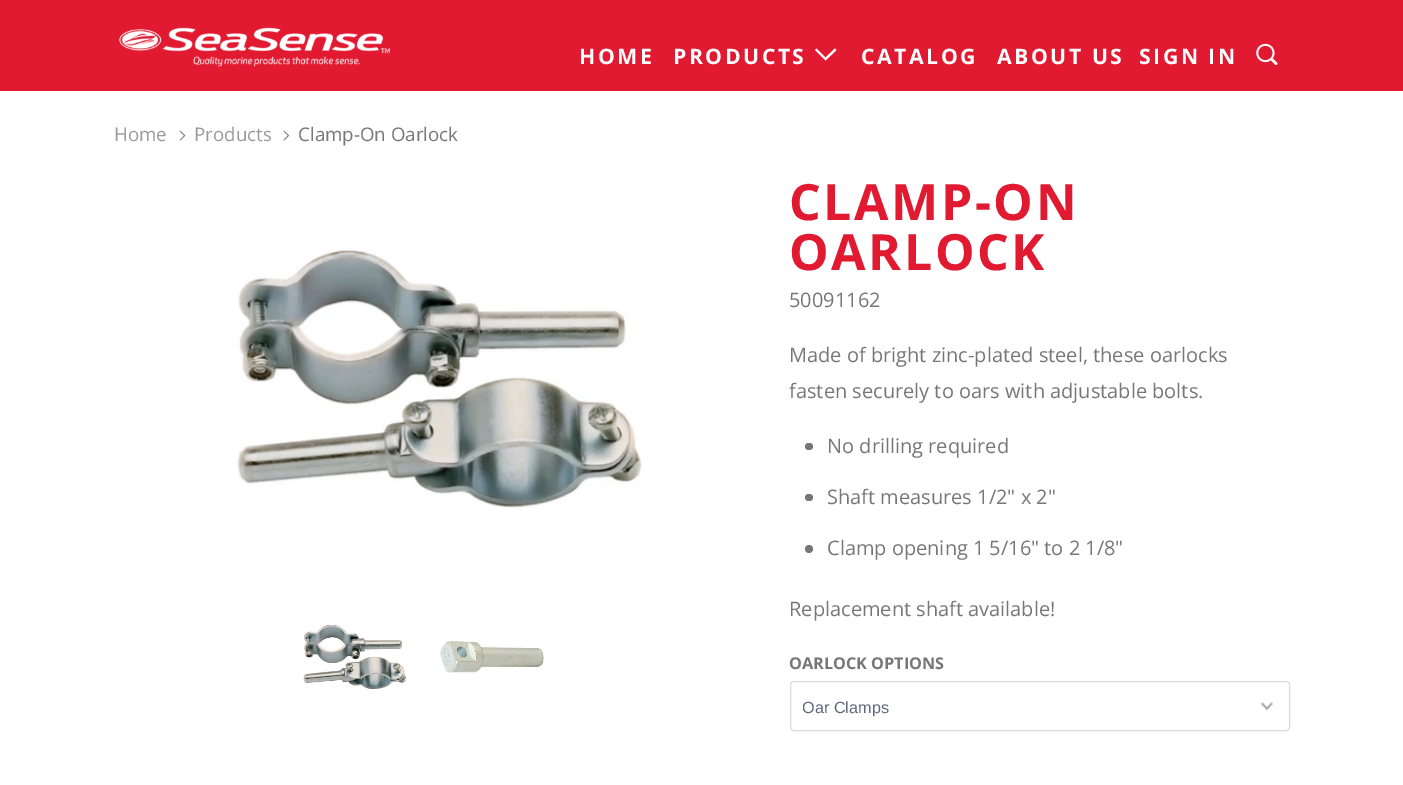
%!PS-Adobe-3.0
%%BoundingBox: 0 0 1403 785
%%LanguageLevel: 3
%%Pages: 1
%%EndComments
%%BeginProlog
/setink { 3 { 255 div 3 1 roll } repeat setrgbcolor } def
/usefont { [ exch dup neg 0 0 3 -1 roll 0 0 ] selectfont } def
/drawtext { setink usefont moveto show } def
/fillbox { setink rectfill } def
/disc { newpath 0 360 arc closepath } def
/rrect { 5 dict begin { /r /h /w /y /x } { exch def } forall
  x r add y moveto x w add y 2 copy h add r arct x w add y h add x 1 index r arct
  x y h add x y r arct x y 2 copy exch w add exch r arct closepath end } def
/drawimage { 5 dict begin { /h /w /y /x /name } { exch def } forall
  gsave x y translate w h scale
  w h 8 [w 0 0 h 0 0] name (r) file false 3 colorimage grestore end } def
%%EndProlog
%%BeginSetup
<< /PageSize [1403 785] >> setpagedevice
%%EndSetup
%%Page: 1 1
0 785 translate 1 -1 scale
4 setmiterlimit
0 0 1403 785 255 255 255 fillbox
0 0 1403 91 225 25 49 fillbox
(assets/img1.rgb) 118 27 272 40 drawimage
/OpenSans-Bold 21.25 usefont
255 255 255 setink
579 64 moveto 2.5 0 (HOME) ashow
673 64 moveto 2.5 0 (PRODUCTS) ashow
820.5 55.5 moveto 815 50 lineto 816.5 48.5 lineto 825.5 57.5 lineto 835 48.5 lineto 836.5 50 lineto 825.5 60.5 lineto closepath fill
861 64 moveto 2.5 0 (CATALOG) ashow
997 64 moveto 2.5 0 (ABOUT US) ashow
1139 64 moveto 2.5 0 (SIGN IN) ashow
(assets/img2.rgb) 1256 43 22 22 drawimage
(Home) 114 141 /OpenSans-Regular 18.75 155 155 155 drawtext
(assets/img3.rgb) 179 130 7 11 drawimage
(Products) 194 141 /OpenSans-Regular 18.75 155 155 155 drawtext
(assets/img4.rgb) 283 130 7 11 drawimage
(Clamp-On Oarlock) 298 141 /OpenSans-Regular 18.75 119 119 119 drawtext
(assets/img5.rgb) 237 250 405 258 drawimage
(assets/img6.rgb) 303 624 104 65 drawimage
(assets/img7.rgb) 440 641 104 32 drawimage
/OpenSans-Bold 50 usefont
225 25 49 setink
789 220 moveto 2.5 0 (CLAMP-ON) ashow
789 270 moveto 2.5 0 (OARLOCK) ashow
(50091162) 789 307 /OpenSans-Regular 20 119 119 119 drawtext
(Made of bright zinc-plated steel, these oarlocks) 789 362 /OpenSans-Regular 20 119 119 119 drawtext
(fasten securely to oars with adjustable bolts.) 789 398 /OpenSans-Regular 20 119 119 119 drawtext
805 443 8 7 3.5 rrect fill
(No drilling required) 827 453 /OpenSans-Regular 20 119 119 119 drawtext
805 494 8 7 3.5 rrect fill
(Shaft measures 1/2" x 2") 827 504 /OpenSans-Regular 20 119 119 119 drawtext
809 549 4 disc fill
(Clamp opening 1 5/16" to 2 1/8") 827 555 /OpenSans-Regular 20 119 119 119 drawtext
(Replacement shaft available!) 789 616 /OpenSans-Regular 20 119 119 119 drawtext
(OARLOCK OPTIONS) 789 669 /OpenSans-Bold 16.25 119 119 119 drawtext
(assets/img8.rgb) 1261 702 12 9 drawimage
217 219 220 setink
790.5 681.5 499 49 3.5 rrect stroke
gsave
803 699 475 19 rectclip
(Oar Clamps) 802 713 /LiberationSans-Regular 16.25 95 106 125 drawtext
grestore
showpage
%%EOF
